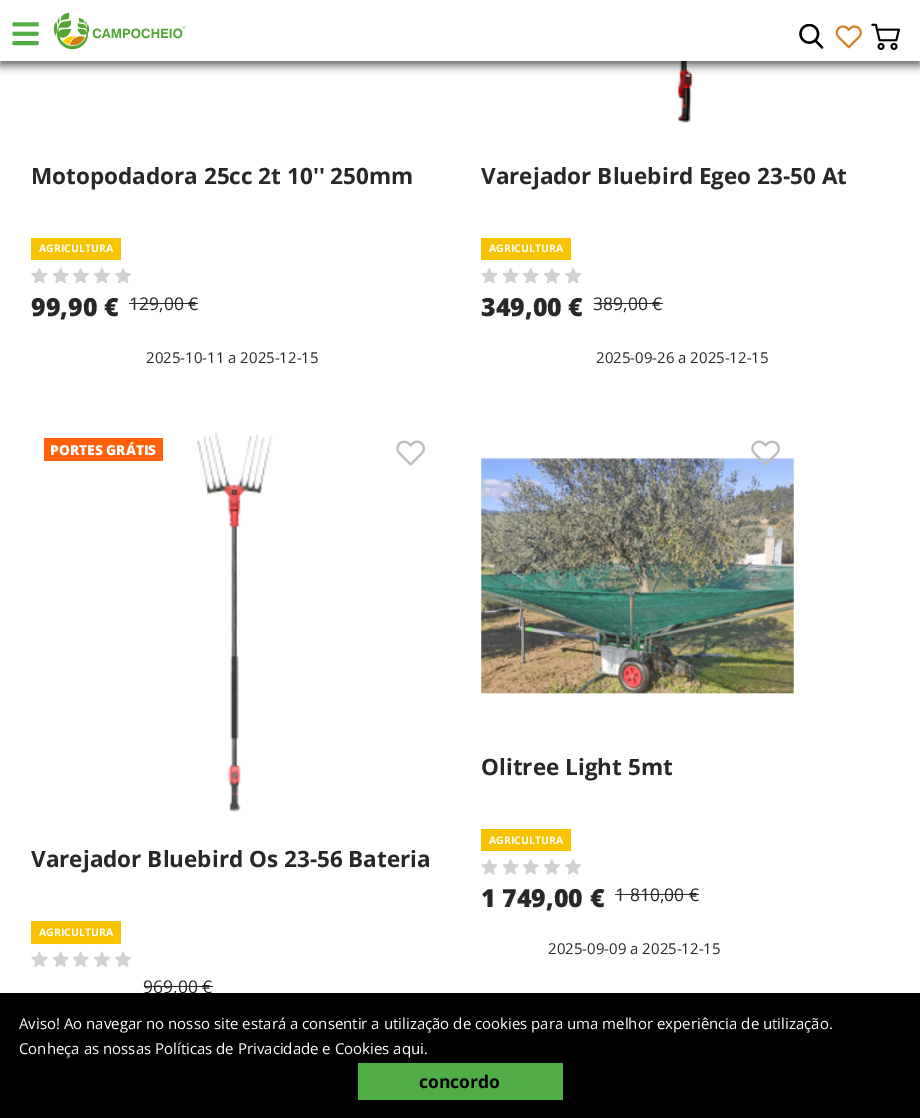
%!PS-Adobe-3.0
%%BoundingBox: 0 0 920 1118
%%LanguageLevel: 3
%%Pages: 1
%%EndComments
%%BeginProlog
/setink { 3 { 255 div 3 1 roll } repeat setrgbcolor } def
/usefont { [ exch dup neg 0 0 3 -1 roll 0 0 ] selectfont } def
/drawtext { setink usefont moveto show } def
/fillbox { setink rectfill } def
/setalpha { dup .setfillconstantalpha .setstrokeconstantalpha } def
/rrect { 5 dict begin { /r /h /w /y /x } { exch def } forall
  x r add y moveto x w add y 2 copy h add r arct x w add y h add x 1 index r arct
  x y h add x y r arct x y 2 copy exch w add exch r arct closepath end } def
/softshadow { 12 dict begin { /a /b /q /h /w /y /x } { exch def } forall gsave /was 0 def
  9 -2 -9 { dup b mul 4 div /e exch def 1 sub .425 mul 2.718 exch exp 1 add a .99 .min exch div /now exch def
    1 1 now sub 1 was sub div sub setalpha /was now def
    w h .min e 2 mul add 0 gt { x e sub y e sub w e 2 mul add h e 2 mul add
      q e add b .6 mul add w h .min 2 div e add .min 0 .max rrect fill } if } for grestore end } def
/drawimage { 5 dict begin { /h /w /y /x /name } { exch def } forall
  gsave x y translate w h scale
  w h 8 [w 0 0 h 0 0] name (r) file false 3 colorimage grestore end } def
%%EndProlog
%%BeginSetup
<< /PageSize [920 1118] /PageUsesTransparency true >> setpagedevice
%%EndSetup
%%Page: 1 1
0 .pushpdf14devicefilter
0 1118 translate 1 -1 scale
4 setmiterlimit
0 0 920 1118 255 255 255 fillbox
(assets/img10.rgb) 677 61 17 62 drawimage
0 0 0 setink
0 4 920 61 0 4.5 0.35 softshadow
0 4 920 61 0 4.5 0.35 softshadow
0 0 920 61 255 255 255 fillbox
(assets/img1.rgb) 12 22 27 24 drawimage
(assets/img2.rgb) 53 12 133 38 drawimage
(assets/img3.rgb) 799 24 25 25 drawimage
(assets/img4.rgb) 835 25 27 24 drawimage
(assets/img5.rgb) 871 23 29 27 drawimage
(Motopodadora 25cc 2t 10'' 250mm) 31 184 /OpenSans-Bold 22.5 40 40 40 drawtext
31 238 90 22 248 195 0 fillbox
(AGRICULTURA) 39 252 /OpenSans-Bold 10.5 255 255 255 drawtext
(assets/img6.rgb) 31 268 17 16 drawimage
(assets/img7.rgb) 53 268 16 16 drawimage
(assets/img7.rgb) 73 268 16 16 drawimage
(assets/img8.rgb) 94 268 16 16 drawimage
(assets/img9.rgb) 115 268 16 16 drawimage
(99,90 €) 31 316 /OpenSans-ExtraBold 25 40 40 40 drawtext
(129,00 €) 129 310 /OpenSans-Regular 17.5 40 40 40 drawtext
129 303 69 1 40 40 40 fillbox
(2025-10-11 a 2025-12-15) 146 363 /OpenSans-Regular 15 40 40 40 drawtext
(Varejador Bluebird Egeo 23-50 At) 481 184 /OpenSans-Bold 22.5 40 40 40 drawtext
481 238 90 22 248 195 0 fillbox
(AGRICULTURA) 489 252 /OpenSans-Bold 10.5 255 255 255 drawtext
(assets/img6.rgb) 481 268 17 16 drawimage
(assets/img7.rgb) 503 268 16 16 drawimage
(assets/img7.rgb) 523 268 16 16 drawimage
(assets/img8.rgb) 544 268 16 16 drawimage
(assets/img9.rgb) 565 268 16 16 drawimage
(349,00 €) 481 316 /OpenSans-ExtraBold 25 40 40 40 drawtext
(389,00 €) 593 310 /OpenSans-Regular 17.5 40 40 40 drawtext
594 303 69 1 40 40 40 fillbox
(2025-09-26 a 2025-12-15) 596 363 /OpenSans-Regular 15 40 40 40 drawtext
44 438 119 23 255 96 9 fillbox
(PORTES GRÁTIS) 50 455 /OpenSans-ExtraBold 13.75 255 255 255 drawtext
(assets/img11.rgb) 197 431 76 381 drawimage
(assets/img12.rgb) 396 440 29 26 drawimage
(Varejador Bluebird Os 23-56 Bateria) 31 867 /OpenSans-Bold 22.5 40 40 40 drawtext
31 921 90 23 248 195 0 fillbox
(AGRICULTURA) 39 936 /OpenSans-Bold 10.5 255 255 255 drawtext
(assets/img13.rgb) 31 951 17 16 drawimage
(assets/img14.rgb) 53 951 16 16 drawimage
(assets/img14.rgb) 73 951 16 16 drawimage
(assets/img15.rgb) 94 951 16 16 drawimage
(assets/img16.rgb) 115 951 16 16 drawimage
(969,00 €) 143 993 /OpenSans-Regular 17.5 40 40 40 drawtext
144 986 69 1 40 40 40 fillbox
(assets/img18.rgb) 481 458 313 236 drawimage
(assets/img17.rgb) 751 440 29 26 drawimage
(Olitree Light 5mt) 481 775 /OpenSans-Bold 22.5 40 40 40 drawtext
481 829 90 22 248 195 0 fillbox
(AGRICULTURA) 489 844 /OpenSans-Bold 10.5 255 255 255 drawtext
(assets/img19.rgb) 481 859 17 16 drawimage
(assets/img20.rgb) 503 859 16 16 drawimage
(assets/img20.rgb) 523 859 16 16 drawimage
(assets/img21.rgb) 544 859 16 16 drawimage
(assets/img22.rgb) 565 859 16 16 drawimage
(1 749,00 €) 481 907 /OpenSans-ExtraBold 25 40 40 40 drawtext
(1 810,00 €) 615 901 /OpenSans-Regular 17.5 40 40 40 drawtext
615 894 84 1 40 40 40 fillbox
(2025-09-09 a 2025-12-15) 548 954 /OpenSans-Regular 15 40 40 40 drawtext
0 993 920 125 0 0 0 fillbox
(Aviso! Ao navegar no nosso site estará a consentir a utilização de cookies para uma melhor experiência de utilização.) 19 1029 /OpenSans-Regular 15 255 255 255 drawtext
(Conheça as nossas Políticas de Privacidade e Cookies aqui.) 19 1054 /OpenSans-Regular 15 255 255 255 drawtext
358 1063 205 37 81 174 71 fillbox
(concordo) 419 1088 /OpenSans-Bold 17.5 0 0 0 drawtext
.poppdf14devicefilter showpage
%%EOF
